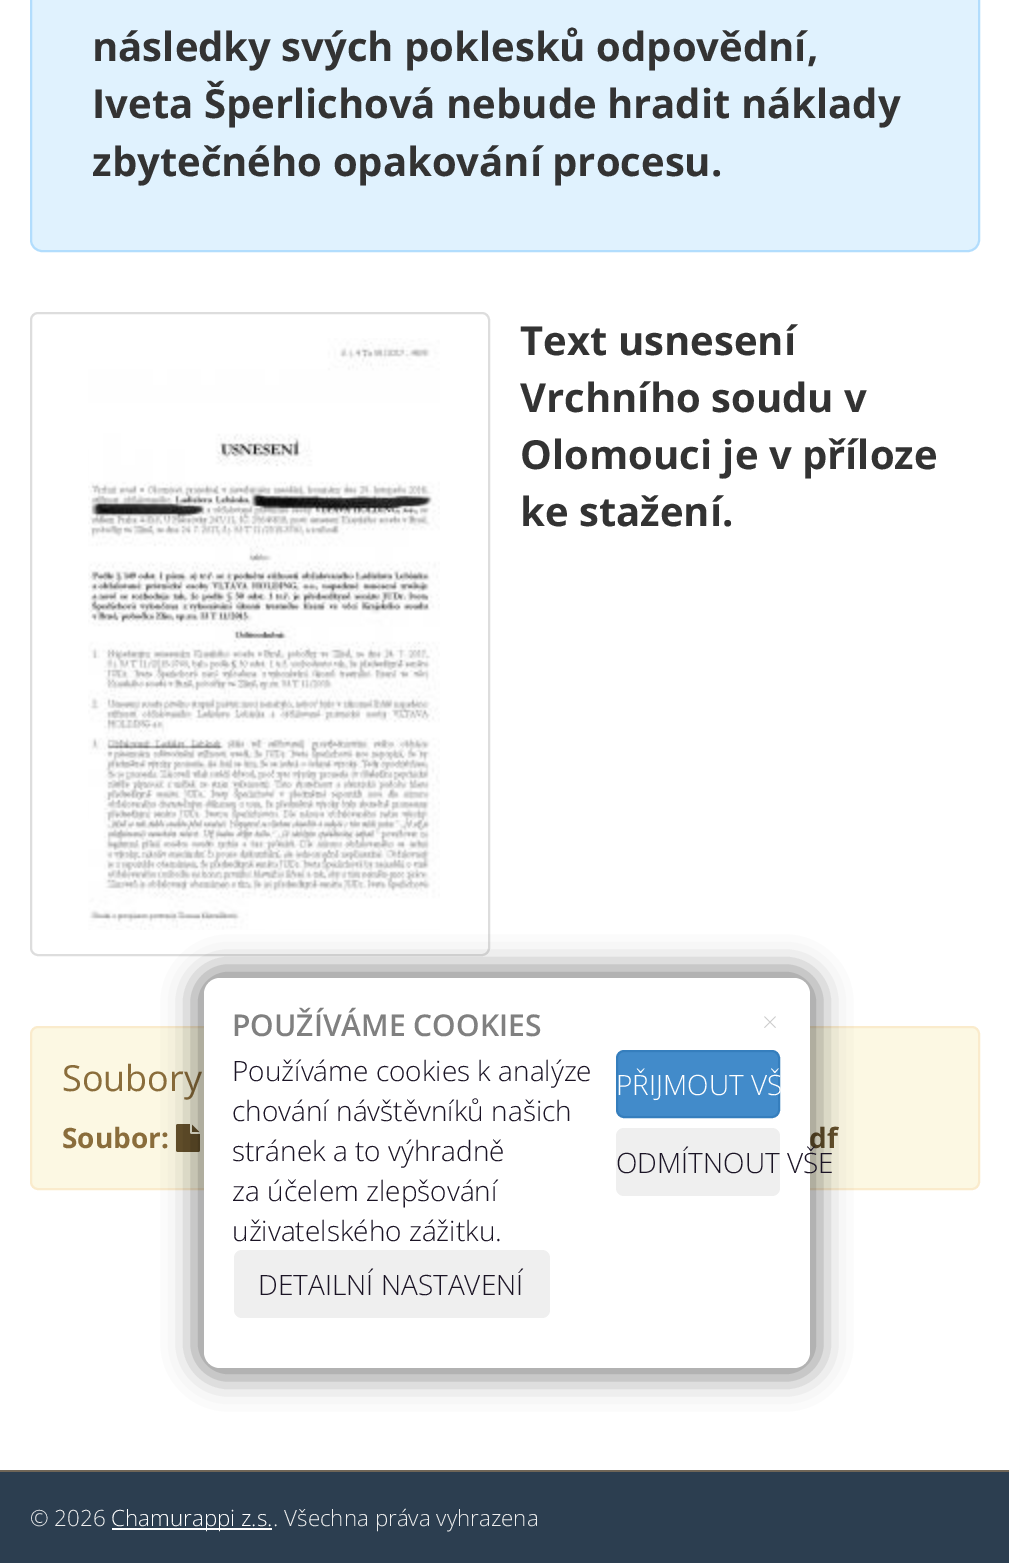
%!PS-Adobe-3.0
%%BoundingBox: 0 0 1009 1563
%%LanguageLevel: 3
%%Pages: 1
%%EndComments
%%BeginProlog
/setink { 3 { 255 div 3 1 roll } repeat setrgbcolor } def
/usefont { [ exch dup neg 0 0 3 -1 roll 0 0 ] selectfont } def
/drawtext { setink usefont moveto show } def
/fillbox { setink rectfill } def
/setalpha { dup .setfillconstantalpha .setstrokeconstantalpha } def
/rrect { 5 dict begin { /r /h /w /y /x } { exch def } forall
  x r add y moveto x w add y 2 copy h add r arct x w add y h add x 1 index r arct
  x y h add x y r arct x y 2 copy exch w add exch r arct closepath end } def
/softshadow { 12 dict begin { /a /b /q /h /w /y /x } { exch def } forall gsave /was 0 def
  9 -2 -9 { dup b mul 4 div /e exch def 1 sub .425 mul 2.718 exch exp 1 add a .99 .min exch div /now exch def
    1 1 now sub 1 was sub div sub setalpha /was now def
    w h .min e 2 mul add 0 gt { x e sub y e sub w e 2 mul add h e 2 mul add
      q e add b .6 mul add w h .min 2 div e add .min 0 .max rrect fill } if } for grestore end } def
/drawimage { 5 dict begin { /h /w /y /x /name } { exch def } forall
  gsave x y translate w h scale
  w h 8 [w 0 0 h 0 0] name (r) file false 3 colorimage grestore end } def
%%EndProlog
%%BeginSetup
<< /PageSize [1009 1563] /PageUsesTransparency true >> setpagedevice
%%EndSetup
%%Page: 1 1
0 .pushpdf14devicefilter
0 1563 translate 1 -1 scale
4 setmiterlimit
0 0 1009 1563 255 255 255 fillbox
224 242 254 setink
31 -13 948 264 11 rrect gsave fill grestore
178 221 253 setink
2 setlinewidth
stroke
(následky svých poklesků odpovědní,) 92 61 /OpenSans-Bold 40 51 51 51 drawtext
(Iveta Šperlichová nebude hradit náklady) 92 118 /OpenSans-Bold 40 51 51 51 drawtext
(zbytečného opakování procesu.) 92 176 /OpenSans-Bold 40 51 51 51 drawtext
221 221 221 setink
31 313 458 642 7 rrect stroke
(assets/img1.rgb) 88 338 352 592 drawimage
(Text usnesení) 520 355 /OpenSans-Bold 40 51 51 51 drawtext
(Vrchního soudu v) 520 412 /OpenSans-Bold 40 51 51 51 drawtext
(Olomouci je v příloze) 520 469 /OpenSans-Bold 40 51 51 51 drawtext
(ke stažení.) 520 526 /OpenSans-Bold 40 51 51 51 drawtext
252 248 227 setink
31 1027 948 162 7 rrect gsave fill grestore
250 235 204 setink
stroke
(Soubory) 62 1091 /OpenSans-Regular 36 138 109 59 drawtext
(Soubor:) 62 1148 /OpenSans-Bold 28 138 109 59 drawtext
(assets/img2.rgb) 176 1124 24 28 drawimage
(df) 809 1148 /OpenSans-Bold 28 102 81 44 drawtext
0 1472 1009 91 44 62 80 fillbox
0 1470 1009 2 111 101 87 fillbox
(© 2026) 30 1526 /OpenSans-Light 22.4 238 238 238 drawtext
112 1528 160 2 255 255 255 fillbox
(Chamurappi z.s.) 111 1526 /OpenSans-Light 22.4 255 255 255 drawtext
(. Všechna práva vyhrazena) 273 1526 /OpenSans-Light 22.4 238 238 238 drawtext
0 0 0 setink
194 968 626 410 26 15 0.43 softshadow
255 255 255 setink
204 978 606 390 16 rrect fill
(POUŽÍVÁME COOKIES) 232 1036 /OpenSans-SemiBold 30 128 128 128 drawtext
(×) 762 1032 /OpenSans-Light 28 204 204 204 drawtext
(Používáme cookies k analýze) 232 1081 /OpenSans-Light 28 27 20 37 drawtext
(chování návštěvníků našich) 232 1121 /OpenSans-Light 28 27 20 37 drawtext
(stránek a to výhradně) 232 1161 /OpenSans-Light 28 27 20 37 drawtext
(za účelem zlepšování) 232 1201 /OpenSans-Light 28 27 20 37 drawtext
(uživatelského zážitku.) 232 1241 /OpenSans-Light 28 27 20 37 drawtext
239 239 239 setink
234 1250 316 68 8 rrect fill
(DETAILNÍ NASTAVENÍ) 258 1295 /OpenSans-Light 28 27 20 37 drawtext
66 139 202 setink
617 1051 162 66 7 rrect gsave fill grestore
53 126 189 setink
stroke
(PŘIJMOUT VŠ) 616 1095 /OpenSans-Light 28 255 255 255 drawtext
239 239 239 setink
616 1128 164 68 8 rrect fill
(ODMÍTNOUT VŠE) 616 1173 /OpenSans-Light 28 27 20 37 drawtext
.poppdf14devicefilter showpage
%%EOF
